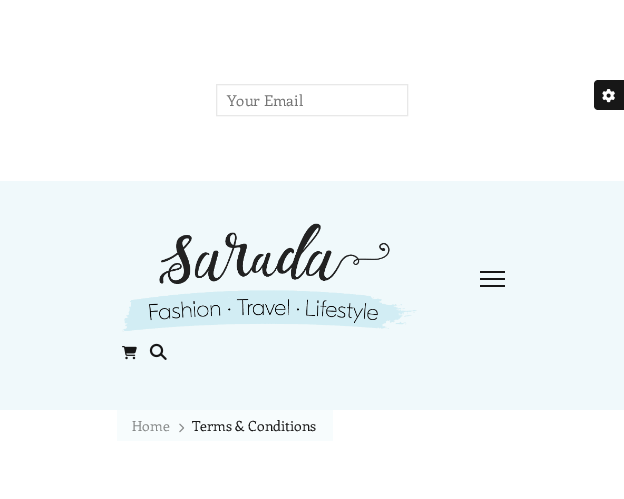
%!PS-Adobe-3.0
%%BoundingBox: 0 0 624 499
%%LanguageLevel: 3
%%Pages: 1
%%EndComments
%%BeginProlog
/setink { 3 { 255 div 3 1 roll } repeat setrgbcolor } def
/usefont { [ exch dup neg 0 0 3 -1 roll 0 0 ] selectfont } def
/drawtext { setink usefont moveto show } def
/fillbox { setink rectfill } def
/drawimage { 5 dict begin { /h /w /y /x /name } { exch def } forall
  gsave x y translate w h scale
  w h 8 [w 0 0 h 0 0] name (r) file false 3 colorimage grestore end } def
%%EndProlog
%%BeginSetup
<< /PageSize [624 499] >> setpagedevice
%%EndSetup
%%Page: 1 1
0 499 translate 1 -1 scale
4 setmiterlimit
0 0 624 499 255 255 255 fillbox
232 232 232 setink
216.5 84.5 191 31 rectstroke
(Your Email) 227 106 /Enriqueta-Regular 15 117 117 117 drawtext
23 23 23 setink
598 80 moveto 624 80 lineto 624 110 lineto 598 110 lineto 596 110 594 108 594 106 curveto 594 84 lineto 594 82 596 80 598 80 curveto closepath fill
(assets/img1.rgb) 602 89 13 14 drawimage
0 181 624 229 240 249 251 fillbox
(assets/img2.rgb) 122 223 295 109 drawimage
480 271 25 2 23 23 23 fillbox
480 278 25 2 23 23 23 fillbox
480 285 25 2 23 23 23 fillbox
(assets/img3.rgb) 122 346 15 14 drawimage
(assets/img4.rgb) 149 343 18 17 drawimage
117 410 216 31 247 252 253 fillbox
(Home) 132 431 /Enriqueta-Regular 14 135 138 138 drawtext
(assets/img5.rgb) 179 423 6 10 drawimage
(Terms & Conditions) 192 431 /Enriqueta-Regular 14 23 23 23 drawtext
showpage
%%EOF
